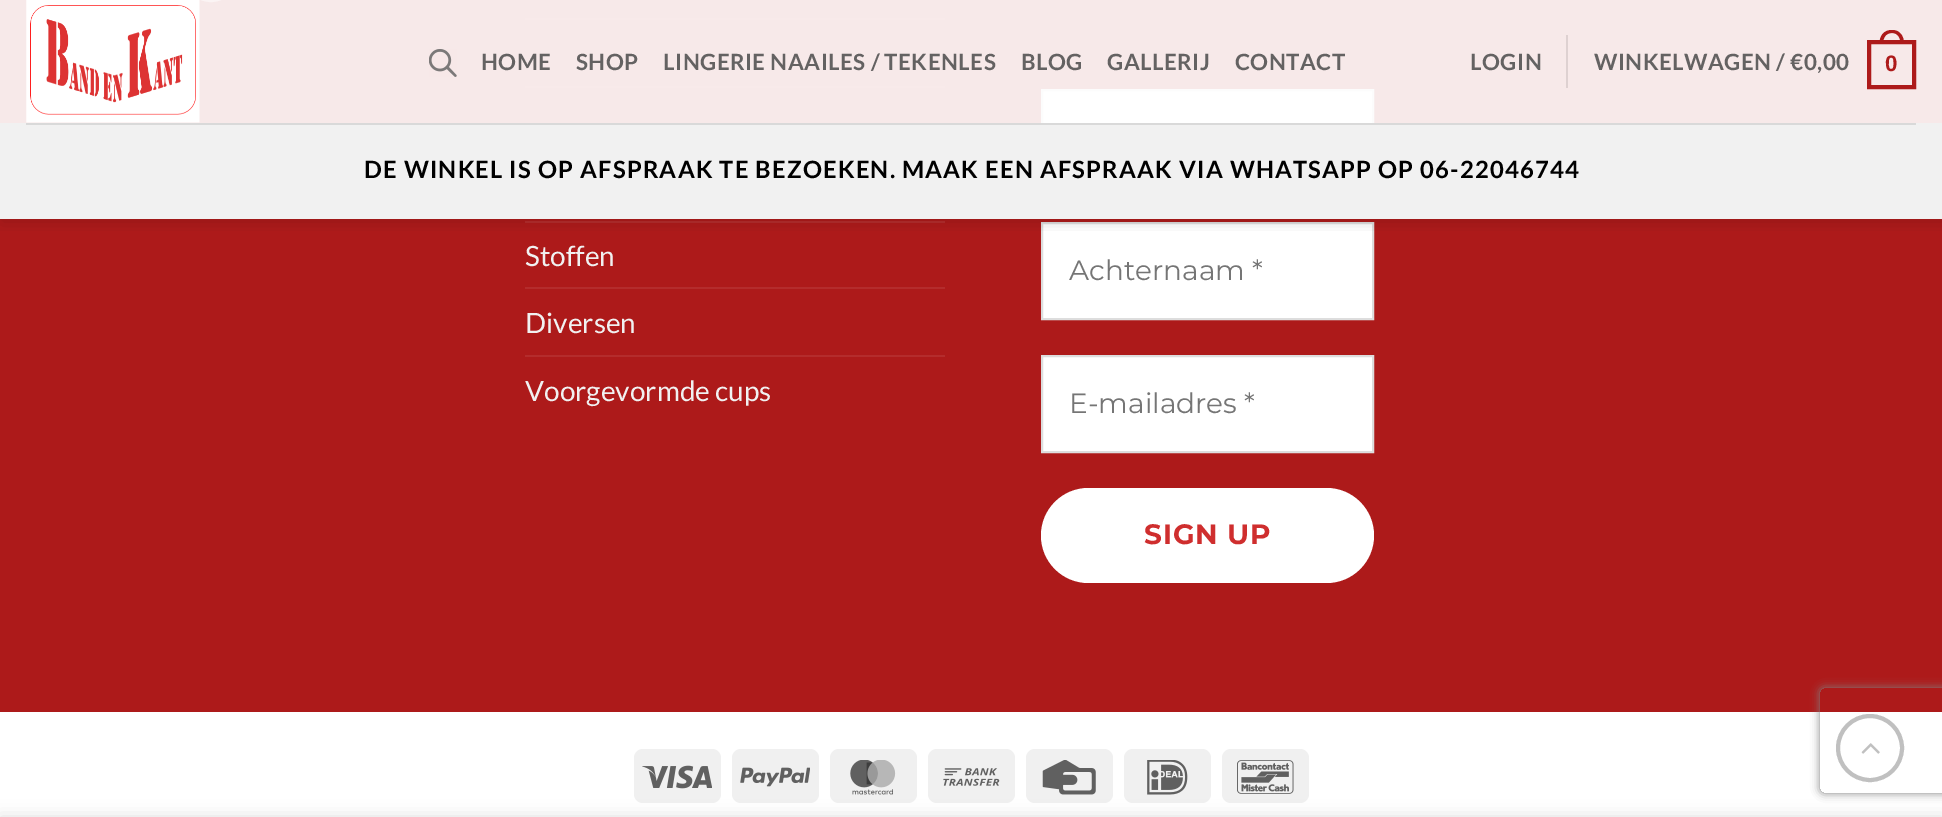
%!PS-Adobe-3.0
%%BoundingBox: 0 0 1942 817
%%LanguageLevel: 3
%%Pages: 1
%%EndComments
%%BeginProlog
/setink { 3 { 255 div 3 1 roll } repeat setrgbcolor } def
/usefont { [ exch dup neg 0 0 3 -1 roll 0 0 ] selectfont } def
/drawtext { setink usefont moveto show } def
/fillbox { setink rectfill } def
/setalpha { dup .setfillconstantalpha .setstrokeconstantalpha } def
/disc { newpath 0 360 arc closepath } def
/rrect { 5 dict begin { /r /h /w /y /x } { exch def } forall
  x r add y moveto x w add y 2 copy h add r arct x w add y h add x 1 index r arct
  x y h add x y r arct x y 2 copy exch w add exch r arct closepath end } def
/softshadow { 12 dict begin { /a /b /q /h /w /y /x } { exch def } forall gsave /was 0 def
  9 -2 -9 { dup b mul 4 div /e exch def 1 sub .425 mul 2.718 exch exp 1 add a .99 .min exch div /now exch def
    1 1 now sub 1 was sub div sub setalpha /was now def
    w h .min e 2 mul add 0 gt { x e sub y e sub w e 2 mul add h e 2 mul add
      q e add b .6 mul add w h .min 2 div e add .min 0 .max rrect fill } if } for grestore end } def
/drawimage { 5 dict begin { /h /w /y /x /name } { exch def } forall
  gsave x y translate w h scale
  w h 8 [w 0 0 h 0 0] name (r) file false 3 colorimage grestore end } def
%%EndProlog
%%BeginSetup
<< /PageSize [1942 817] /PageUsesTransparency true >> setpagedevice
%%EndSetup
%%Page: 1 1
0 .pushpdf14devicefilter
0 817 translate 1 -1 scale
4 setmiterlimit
0 0 1942 817 255 255 255 fillbox
0 0 1942 712 173 26 26 fillbox
214 141 141 setink
4 setlinewidth
184 -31 54 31 27 rrect stroke
525 18 420 2 180 44 44 fillbox
525 86 420 2 180 44 44 fillbox
525 221 420 2 180 44 44 fillbox
1043 91 329 32 255 255 255 fillbox
221 221 221 setink
2 setlinewidth
1042 90 331 96 rectstroke
255 255 255 setink
1042 223 moveto 1373 223 lineto 1373 319 lineto 1042 319 lineto closepath gsave fill grestore
221 221 221 setink
stroke
gsave
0 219 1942 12 rectclip
0 0 0 setink
2 2 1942 219 0 9 0.15 softshadow
grestore
0.9 setalpha
0 0 1942 123 255 255 255 fillbox
1 setalpha
(assets/img1.rgb) 26 0 174 123 drawimage
(assets/img2.rgb) 429 49 28 28 drawimage
/Lato-Bold 22.4 usefont
100 98 98 setink
481 70 moveto 0.45 0 (HOME) ashow
576 70 moveto 0.45 0 (SHOP) ashow
663 70 moveto 0.45 0 (LINGERIE NAAILES / TEKENLES) ashow
1021 70 moveto 0.45 0 (BLOG) ashow
1107 70 moveto 0.45 0 (GALLERIJ) ashow
1235 70 moveto 0.45 0 (CONTACT) ashow
1470 70 moveto 0.45 0 (LOGIN) ashow
1566 35 2 53 222 209 209 fillbox
100 98 98 setink
1594 70 moveto 0.45 0 (WINKELWAGEN / €0,00) ashow
173 26 26 setink
4 setlinewidth
1869 42 45 45 rectstroke
1892 30 moveto 1900 30 1904 36 1904 44 curveto 1879.5 44 lineto 1879.5 36 1883.5 30 1892 30 curveto closepath 1892 33 moveto 1898 33 1900.5 38 1900.5 44 curveto 1883 44 lineto 1883 38 1885.5 33 1892 33 curveto closepath eofill
/LiberationSans-Bold 22.4 usefont
1885 71 moveto 0.45 0 (0) ashow
0 123 1942 96 241 241 241 fillbox
26 123 1890 2 217 217 217 fillbox
/Lato-Bold 23.8 usefont
0 0 0 setink
364 178 moveto 1.2 0 (DE WINKEL IS OP AFSPRAAK TE BEZOEKEN. MAAK EEN AFSPRAAK VIA WHATSAPP OP 06-22046744) ashow
(Stoffen) 525 266 /Lato-Regular 28 241 241 241 drawtext
525 287 420 2 180 44 44 fillbox
(Diversen) 525 333 /Lato-Regular 28 241 241 241 drawtext
525 355 420 2 180 44 44 fillbox
(Voorgevormde cups) 525 401 /Lato-Regular 28 241 241 241 drawtext
(Achternaam *) 1069 280 /Montserrat-Regular 28 117 117 117 drawtext
255 255 255 setink
1042 356 moveto 1373 356 lineto 1373 452 lineto 1042 452 lineto closepath gsave fill grestore
221 221 221 setink
2 setlinewidth
stroke
(E-mailadres *) 1069 413 /Montserrat-Regular 28 117 117 117 drawtext
255 255 255 setink
1041 488 333 95 47.5 rrect fill
/Montserrat-Bold 28 usefont
207 46 46 setink
1144 544 moveto 0.75 0 (SIGN UP) ashow
240 240 240 setink
634 749 87 54 9 rrect fill
(assets/img3.rgb) 642 765 70 24 drawimage
732 749 87 54 9 rrect fill
(assets/img4.rgb) 740 767 70 20 drawimage
830 749 87 54 9 rrect fill
(assets/img5.rgb) 850 760 46 35 drawimage
928 749 87 54 9 rrect fill
(assets/img6.rgb) 943 768 57 18 drawimage
1026 749 87 54 9 rrect fill
(assets/img7.rgb) 1042 760 54 35 drawimage
1124 749 87 54 9 rrect fill
(assets/img8.rgb) 1147 760 41 35 drawimage
1222 749 87 54 9 rrect fill
(assets/img9.rgb) 1237 760 57 34 drawimage
gsave
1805 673 moveto 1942 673 lineto 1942 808 lineto 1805 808 lineto closepath 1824 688 moveto 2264 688 lineto 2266 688 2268 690 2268 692 curveto 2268 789 lineto 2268 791 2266 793 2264 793 curveto 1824 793 lineto 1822 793 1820 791 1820 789 curveto 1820 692 lineto 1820 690 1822 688 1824 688 curveto closepath eoclip newpath
128 128 128 setink
1820 688 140 105 4 4.5 1 softshadow
grestore
192 192 192 setink
4 setlinewidth
1870 748 32 disc stroke
(assets/img10.rgb) 1861 743 19 11 drawimage
0 0 0 setink
0 817 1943 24 0 8 0.14 softshadow
.poppdf14devicefilter showpage
%%EOF
